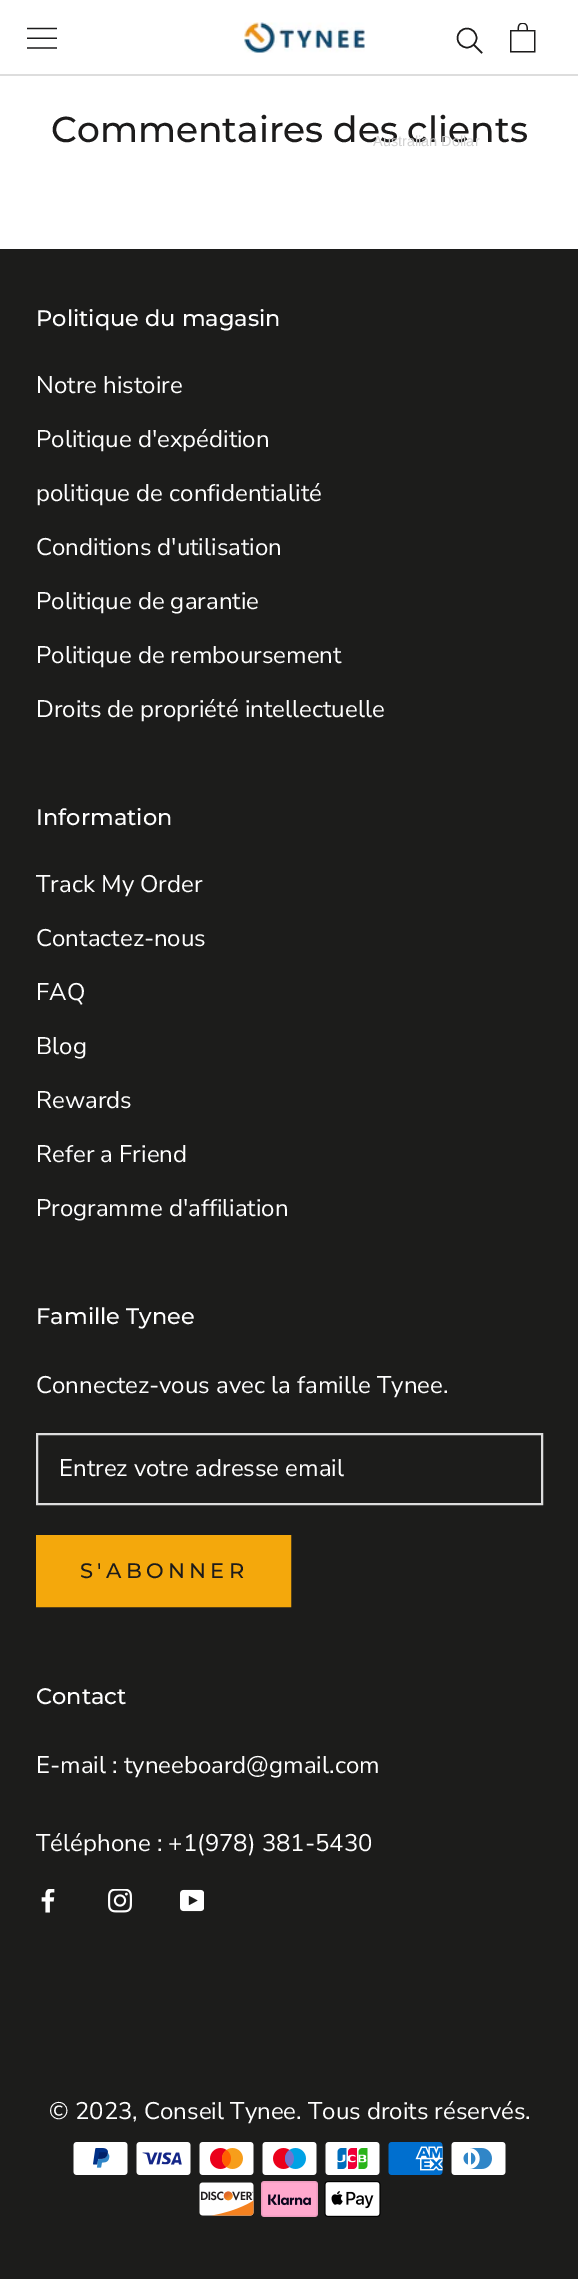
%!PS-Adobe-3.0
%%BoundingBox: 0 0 578 2279
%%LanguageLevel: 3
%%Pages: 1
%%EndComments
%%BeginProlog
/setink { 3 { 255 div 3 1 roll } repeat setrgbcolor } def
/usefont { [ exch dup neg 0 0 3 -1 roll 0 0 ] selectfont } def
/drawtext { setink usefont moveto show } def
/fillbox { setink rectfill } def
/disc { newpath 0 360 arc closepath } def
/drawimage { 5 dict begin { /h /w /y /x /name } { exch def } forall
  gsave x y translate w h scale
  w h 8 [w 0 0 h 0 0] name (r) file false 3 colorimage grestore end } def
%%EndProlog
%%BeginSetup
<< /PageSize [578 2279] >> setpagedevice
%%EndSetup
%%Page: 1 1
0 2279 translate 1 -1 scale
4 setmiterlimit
0 0 578 2279 255 255 255 fillbox
0 74 578 2 221 221 221 fillbox
(assets/img1.rgb) 27 27 30 22 drawimage
(assets/img2.rgb) 244 22 121 31 drawimage
28 27 27 setink
1.5 setlinewidth
2 setlinecap
481.5 52.5 moveto 474 45 lineto stroke
0 setlinecap
467 38 9.5 disc stroke
(assets/img3.rgb) 510 23 26 30 drawimage
(Commentaires des clients) 51 142 /Montserrat-Medium 36 28 27 27 drawtext
(Australian Dollar) 373 146 /LiberationSans-Regular 14.5 210 210 210 drawtext
0 249 578 2030 28 28 27 fillbox
(Politique du magasin) 36 326 /Montserrat-Medium 22.5 255 255 255 drawtext
(Notre histoire) 36 393 /NunitoSans-Regular 24 255 255 255 drawtext
(Politique d'expédition) 36 447 /NunitoSans-Regular 24 255 255 255 drawtext
(politique de confidentialité) 36 501 /NunitoSans-Regular 24 255 255 255 drawtext
(Conditions d'utilisation) 36 555 /NunitoSans-Regular 24 255 255 255 drawtext
(Politique de garantie) 36 609 /NunitoSans-Regular 24 255 255 255 drawtext
(Politique de remboursement) 36 663 /NunitoSans-Regular 24 255 255 255 drawtext
(Droits de propriété intellectuelle) 36 717 /NunitoSans-Regular 24 255 255 255 drawtext
(Information) 36 825 /Montserrat-Medium 22.5 255 255 255 drawtext
(Track My Order) 36 892 /NunitoSans-Regular 24 255 255 255 drawtext
(Contactez-nous) 36 946 /NunitoSans-Regular 24 255 255 255 drawtext
(FAQ) 36 1000 /NunitoSans-Regular 24 255 255 255 drawtext
(Blog) 36 1054 /NunitoSans-Regular 24 255 255 255 drawtext
(Rewards) 36 1108 /NunitoSans-Regular 24 255 255 255 drawtext
(Refer a Friend) 36 1162 /NunitoSans-Regular 24 255 255 255 drawtext
(Programme d'affiliation) 36 1216 /NunitoSans-Regular 24 255 255 255 drawtext
(Famille Tynee) 36 1324 /Montserrat-Medium 22.5 255 255 255 drawtext
(Connectez-vous avec la famille Tynee.) 36 1393 /NunitoSans-Regular 24 255 255 255 drawtext
221 221 221 setink
2 setlinewidth
37 1434 505 70 rectstroke
(Entrez votre adresse email) 59 1476 /NunitoSans-Regular 24 255 255 255 drawtext
244 168 12 setink
37 1536 253 70 rectstroke
38 1537 251 68 244 168 12 fillbox
/Montserrat-Medium 21 usefont
28 27 27 setink
80 1578 moveto 4.25 0 (S'ABONNER) ashow
(Contact) 36 1704 /Montserrat-Medium 22.5 255 255 255 drawtext
(E-mail : tyneeboard@gmail.com) 36 1773 /NunitoSans-Regular 24 255 255 255 drawtext
(Téléphone : +1\(978\) 381-5430) 36 1851 /NunitoSans-Regular 24 255 255 255 drawtext
(assets/img4.rgb) 41 1889 14 24 drawimage
(assets/img5.rgb) 108 1889 24 24 drawimage
(assets/img6.rgb) 180 1889 24 23 drawimage
(© 2023, Conseil Tynee. Tous droits réservés.) 49 2119 /NunitoSans-Regular 24 255 255 255 drawtext
(assets/img7.rgb) 73 2142 55 33 drawimage
(assets/img8.rgb) 136 2142 55 33 drawimage
(assets/img9.rgb) 199 2142 55 33 drawimage
(assets/img10.rgb) 262 2142 55 33 drawimage
(assets/img11.rgb) 325 2142 55 33 drawimage
(assets/img12.rgb) 388 2142 55 33 drawimage
(assets/img13.rgb) 451 2142 55 33 drawimage
(assets/img14.rgb) 199 2182 55 34 drawimage
(assets/img15.rgb) 261 2181 57 36 drawimage
(assets/img16.rgb) 324 2181 57 36 drawimage
showpage
%%EOF
